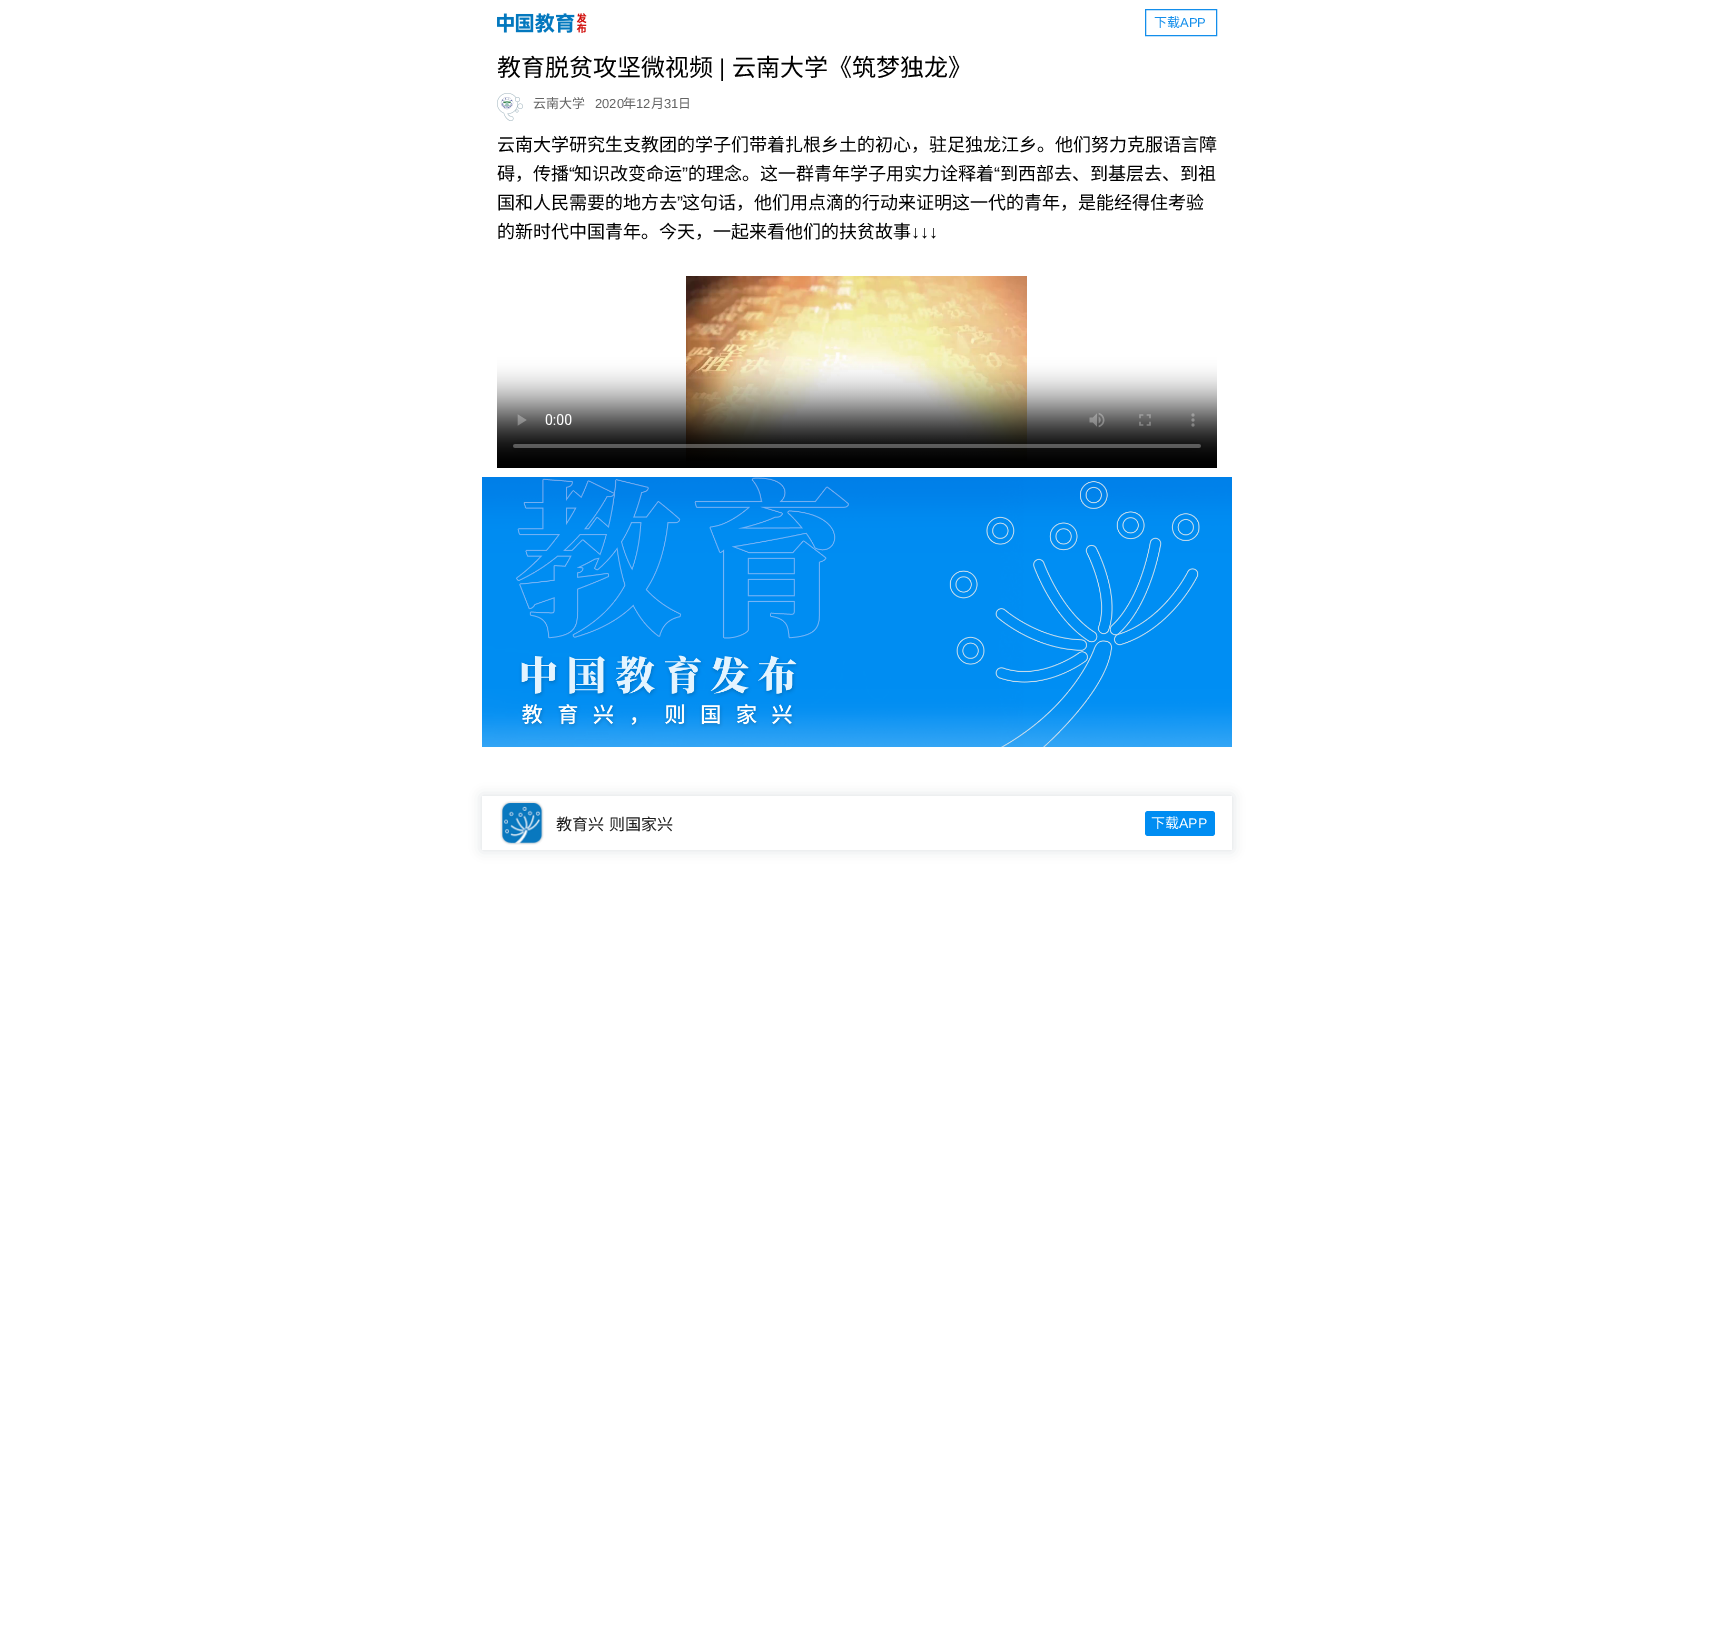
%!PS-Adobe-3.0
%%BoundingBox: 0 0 1713 1644
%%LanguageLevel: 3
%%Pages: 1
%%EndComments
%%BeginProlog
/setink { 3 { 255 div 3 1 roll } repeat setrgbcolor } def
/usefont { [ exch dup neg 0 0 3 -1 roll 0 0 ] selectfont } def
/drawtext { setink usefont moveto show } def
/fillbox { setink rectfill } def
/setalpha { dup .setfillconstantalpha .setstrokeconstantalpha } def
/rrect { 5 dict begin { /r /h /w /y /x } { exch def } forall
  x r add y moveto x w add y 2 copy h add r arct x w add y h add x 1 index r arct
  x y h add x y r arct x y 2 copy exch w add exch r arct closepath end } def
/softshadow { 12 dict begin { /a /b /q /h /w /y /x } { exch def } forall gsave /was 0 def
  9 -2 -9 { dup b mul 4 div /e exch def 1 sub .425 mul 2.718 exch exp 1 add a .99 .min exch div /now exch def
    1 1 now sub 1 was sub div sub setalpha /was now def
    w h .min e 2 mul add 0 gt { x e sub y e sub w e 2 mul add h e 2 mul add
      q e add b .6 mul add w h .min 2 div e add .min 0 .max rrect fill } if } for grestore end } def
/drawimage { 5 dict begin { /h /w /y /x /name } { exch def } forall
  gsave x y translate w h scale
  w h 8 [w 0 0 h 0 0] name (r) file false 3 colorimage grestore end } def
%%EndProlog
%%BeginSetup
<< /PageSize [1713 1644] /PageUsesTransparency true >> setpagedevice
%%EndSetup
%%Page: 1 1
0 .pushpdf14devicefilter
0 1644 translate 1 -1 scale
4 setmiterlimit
0 0 1713 1644 255 255 255 fillbox
(assets/img1.rgb) 497 13 90 20 drawimage
19 142 235 setink
1145.5 9.5 71 26 rectstroke
(下载) 1154 27 /NotoSansCJKSC-Regular 13 19 142 235 drawtext
(APP) 1180 27 /LiberationSans-Regular 13 19 142 235 drawtext
(教育脱贫攻坚微视频) 497 76 /NotoSansCJKSC-Regular 24 0 0 0 drawtext
(|) 719 76 /LiberationSans-Regular 24 0 0 0 drawtext
(云南大学《筑梦独龙》) 732 76 /NotoSansCJKSC-Regular 24 0 0 0 drawtext
(assets/img3.rgb) 500 97 14 13 drawimage
(assets/img2.rgb) 497 93 26 28 drawimage
(云南大学) 533 108 /NotoSansCJKSC-Regular 13 99 99 99 drawtext
(2020) 595 108 /LiberationSans-Regular 13 99 99 99 drawtext
(年) 623 108 /NotoSansCJKSC-Regular 13 99 99 99 drawtext
(12) 636 108 /LiberationSans-Regular 13 99 99 99 drawtext
(月) 651 108 /NotoSansCJKSC-Regular 13 99 99 99 drawtext
(31) 664 108 /LiberationSans-Regular 13 99 99 99 drawtext
(日) 678 108 /NotoSansCJKSC-Regular 13 99 99 99 drawtext
(云南大学研究生支教团的学子们带着扎根乡土的初心，驻足独龙江乡。他们努力克服语言障) 497 151 /NotoSansCJKSC-Regular 18 0 0 0 drawtext
(碍，传播) 497 180 /NotoSansCJKSC-Regular 18 0 0 0 drawtext
(“) 569 180 /LiberationSans-Regular 18 0 0 0 drawtext
(知识改变命运) 574 180 /NotoSansCJKSC-Regular 18 0 0 0 drawtext
(”) 682 180 /LiberationSans-Regular 18 0 0 0 drawtext
(的理念。这一群青年学子用实力诠释着) 688 180 /NotoSansCJKSC-Regular 18 0 0 0 drawtext
(“) 994 180 /LiberationSans-Regular 18 0 0 0 drawtext
(到西部去、到基层去、到祖) 1000 180 /NotoSansCJKSC-Regular 18 0 0 0 drawtext
(国和人民需要的地方去) 497 209 /NotoSansCJKSC-Regular 18 0 0 0 drawtext
(”) 677 209 /LiberationSans-Regular 18 0 0 0 drawtext
(这句话，他们用点滴的行动来证明这一代的青年，是能经得住考验) 682 209 /NotoSansCJKSC-Regular 18 0 0 0 drawtext
(的新时代中国青年。今天，一起来看他们的扶贫故事) 497 238 /NotoSansCJKSC-Regular 18 0 0 0 drawtext
(↓↓↓) 911 238 /LiberationSans-Regular 18 0 0 0 drawtext
(assets/img4.rgb) 497 276 720 192 drawimage
(assets/img5.rgb) 482 477 750 270 drawimage
gsave
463 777 moveto 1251 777 lineto 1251 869 lineto 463 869 lineto closepath 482 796 moveto 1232 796 lineto 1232 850 lineto 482 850 lineto closepath eoclip newpath
16 47 59 setink
482 796 750 54 0 6 0.15 softshadow
grestore
(assets/img6.rgb) 500 801 44 44 drawimage
/NotoSansCJKSC-Regular 16 usefont
29 29 29 setink
556 830 moveto 1 0 32 (教育兴 则国家兴) widthshow
0 141 242 setink
1145 811 70 25 3 rrect fill
(下载) 1151 828 /NotoSansCJKSC-Regular 14 255 255 255 drawtext
(APP) 1179 828 /LiberationSans-Regular 14 255 255 255 drawtext
.poppdf14devicefilter showpage
%%EOF
